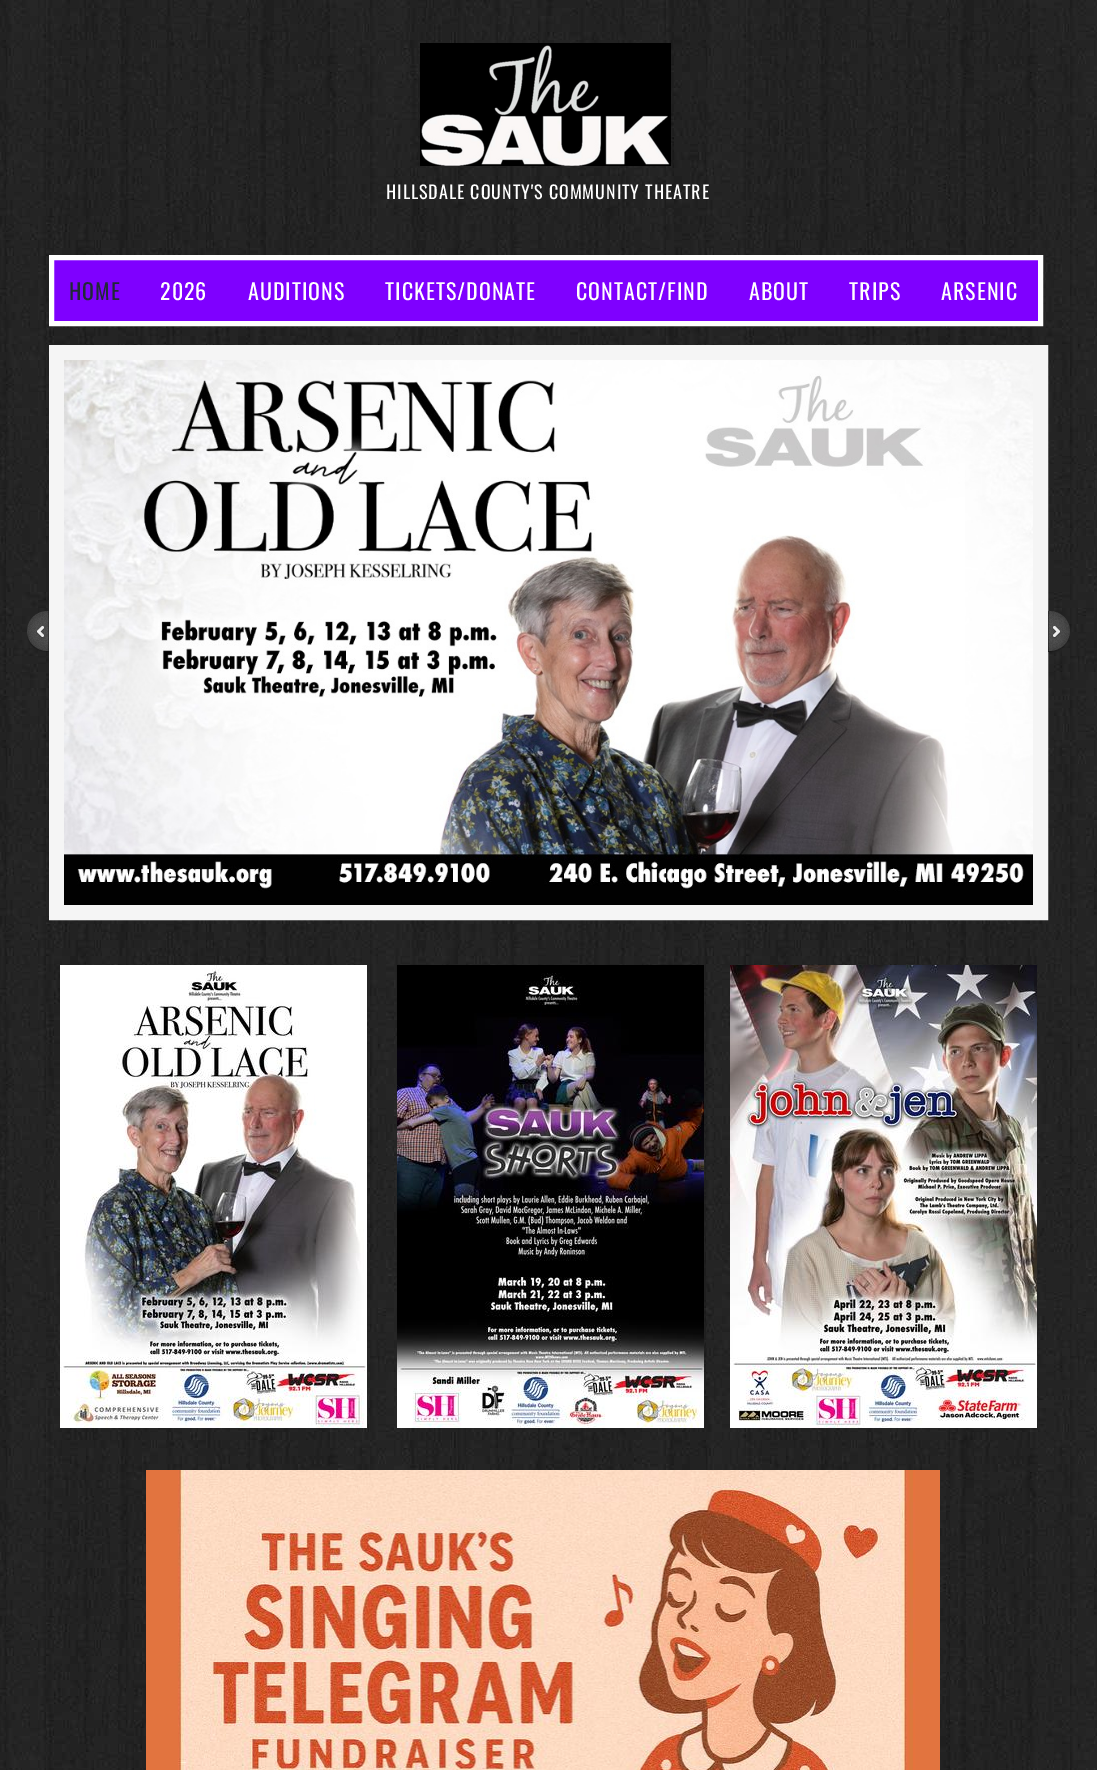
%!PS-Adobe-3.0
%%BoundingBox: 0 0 1097 1770
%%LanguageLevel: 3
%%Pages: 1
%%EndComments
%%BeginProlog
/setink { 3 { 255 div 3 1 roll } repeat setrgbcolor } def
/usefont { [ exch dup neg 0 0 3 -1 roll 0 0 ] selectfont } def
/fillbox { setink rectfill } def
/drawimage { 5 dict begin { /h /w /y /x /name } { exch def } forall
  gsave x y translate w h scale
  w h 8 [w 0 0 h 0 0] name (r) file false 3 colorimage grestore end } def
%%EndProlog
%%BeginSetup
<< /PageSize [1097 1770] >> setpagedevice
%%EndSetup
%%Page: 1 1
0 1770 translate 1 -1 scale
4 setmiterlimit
0 0 1097 1770 255 255 255 fillbox
(assets/img1.rgb) 0 0 1097 1770 drawimage
(assets/img2.rgb) 420 43 251 123 drawimage
/Oswald-Regular 18 usefont
386 199 moveto 1 0 (HILLSDALE COUNTY'S COMMUNITY THEATRE) ashow
127 0 255 setink
51.5 257.5 moveto 1040.5 257.5 lineto 1040.5 323.5 lineto 51.5 323.5 lineto closepath gsave fill grestore
255 255 255 setink
5 setlinewidth
stroke
/Oswald-Regular 22 usefont
33 42 54 setink
69 300 moveto 1 0 (HOME) ashow
255 255 255 setink
160 300 moveto 1 0 (2026) ashow
248 300 moveto 1 0 (AUDITIONS) ashow
385 300 moveto 1 0 (TICKETS/DONATE) ashow
576 300 moveto 1 0 (CONTACT/FIND) ashow
749 300 moveto 1 0 (ABOUT) ashow
849 300 moveto 1 0 (TRIPS) ashow
941 300 moveto 1 0 (ARSENIC) ashow
(assets/img3.rgb) 27 611 22 41 drawimage
245 245 245 setink
15 setlinewidth
56.5 352.5 984 560 rectstroke
(assets/img4.rgb) 64 360 969 545 drawimage
(assets/img5.rgb) 1048 611 22 41 drawimage
(assets/img6.rgb) 60 965 307 463 drawimage
(assets/img7.rgb) 397 965 307 463 drawimage
(assets/img8.rgb) 730 965 307 463 drawimage
(assets/img9.rgb) 146 1470 794 300 drawimage
showpage
%%EOF
